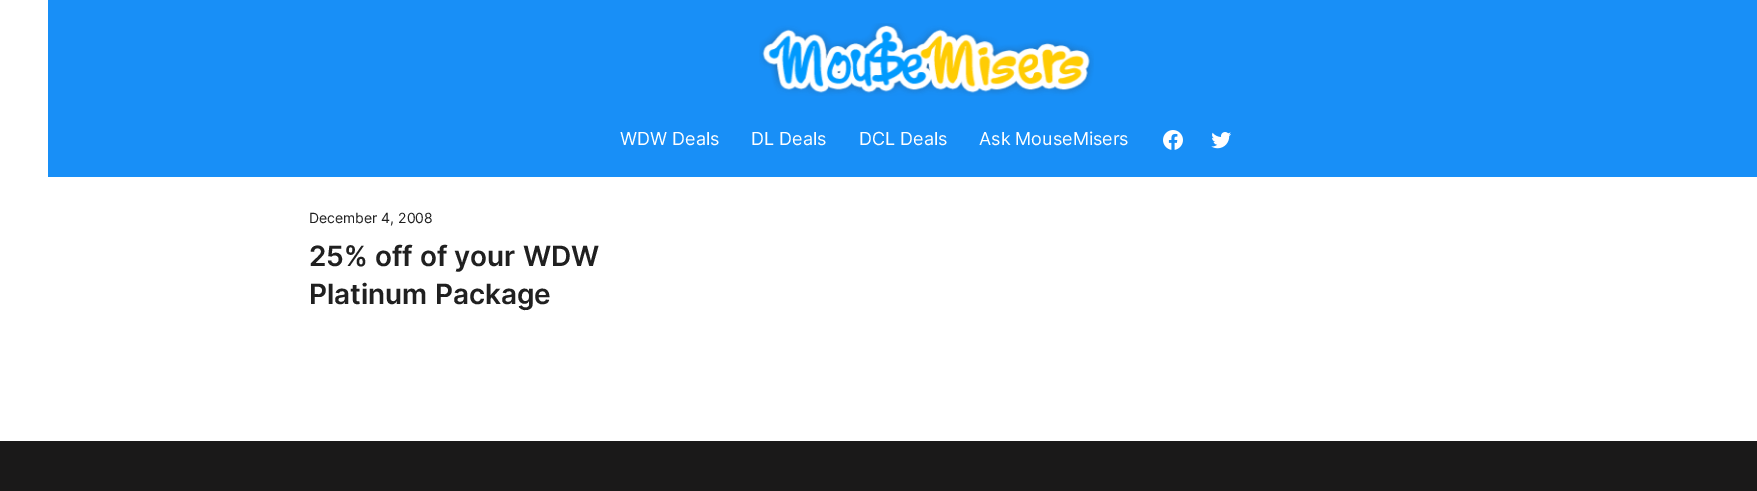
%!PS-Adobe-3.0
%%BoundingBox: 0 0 1757 491
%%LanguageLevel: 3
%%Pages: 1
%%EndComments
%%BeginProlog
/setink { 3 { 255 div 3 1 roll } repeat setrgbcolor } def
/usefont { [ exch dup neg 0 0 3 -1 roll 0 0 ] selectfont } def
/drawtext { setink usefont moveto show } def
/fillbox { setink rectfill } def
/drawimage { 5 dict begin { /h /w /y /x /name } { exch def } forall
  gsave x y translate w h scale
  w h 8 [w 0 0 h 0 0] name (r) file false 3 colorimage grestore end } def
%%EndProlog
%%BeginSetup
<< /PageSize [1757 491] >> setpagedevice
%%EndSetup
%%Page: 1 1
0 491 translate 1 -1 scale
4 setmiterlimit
0 0 1757 491 255 255 255 fillbox
48 0 1709 177 24 143 247 fillbox
(assets/img1.rgb) 759 23 335 73 drawimage
(WDW Deals) 620 145 /Inter-Regular 18 255 255 255 drawtext
(DL Deals) 751 145 /Inter-Regular 18 255 255 255 drawtext
(DCL Deals) 859 145 /Inter-Regular 18 255 255 255 drawtext
(Ask MouseMisers) 979 145 /Inter-Regular 18 255 255 255 drawtext
(assets/img2.rgb) 1163 130 20 20 drawimage
(assets/img3.rgb) 1211 132 20 17 drawimage
(December 4, 2008) 309 223 /Inter-Regular 14 32 32 32 drawtext
(25% off of your WDW) 309 266 /Inter-SemiBold 28 32 32 32 drawtext
(Platinum Package) 309 304 /Inter-SemiBold 28 32 32 32 drawtext
0 441 1757 50 26 25 25 fillbox
showpage
%%EOF
